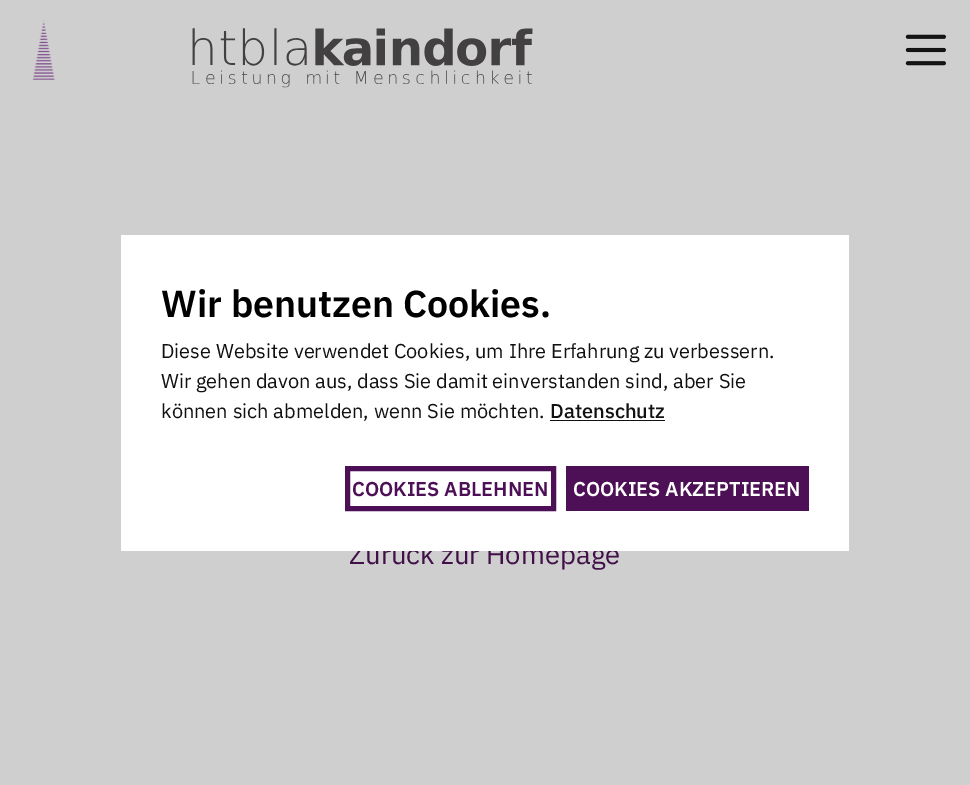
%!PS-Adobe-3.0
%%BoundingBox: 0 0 970 785
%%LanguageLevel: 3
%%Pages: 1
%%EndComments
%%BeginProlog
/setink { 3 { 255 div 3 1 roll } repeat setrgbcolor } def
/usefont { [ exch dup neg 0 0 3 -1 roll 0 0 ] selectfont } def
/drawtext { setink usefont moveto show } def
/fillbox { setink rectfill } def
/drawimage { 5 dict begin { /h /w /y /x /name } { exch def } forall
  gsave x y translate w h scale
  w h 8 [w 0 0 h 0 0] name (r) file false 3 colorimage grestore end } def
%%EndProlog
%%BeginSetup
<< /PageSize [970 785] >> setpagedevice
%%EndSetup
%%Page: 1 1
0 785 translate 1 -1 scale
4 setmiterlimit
0 0 970 785 207 207 207 fillbox
(assets/img1.rgb) 32 20 23 60 drawimage
(assets/img2.rgb) 192 28 341 60 drawimage
(assets/img3.rgb) 905 34 41 32 drawimage
(Zurück zur Homepage) 349 564 /IBMPlexSans-Regular 27.5 65 16 72 drawtext
121 235 728 316 255 255 255 fillbox
(Wir benutzen Cookies.) 161 317 /IBMPlexSans-SemiBold 37.5 0 0 0 drawtext
(Diese Website verwendet Cookies, um Ihre Erfahrung zu verbessern.) 161 358 /IBMPlexSans-Regular 20 17 17 17 drawtext
(Wir gehen davon aus, dass Sie damit einverstanden sind, aber Sie) 161 388 /IBMPlexSans-Regular 20 17 17 17 drawtext
(können sich abmelden, wenn Sie möchten.) 161 418 /IBMPlexSans-Regular 20 17 17 17 drawtext
(Datenschutz) 550 418 /IBMPlexSans-Medium 20 17 17 17 drawtext
550 420 115 1 17 17 17 fillbox
77 16 86 setink
5 setlinewidth
347.5 468.5 206 40 rectstroke
(COOKIES ABLEHNEN) 352 496 /IBMPlexSans-SemiBold 20 77 16 86 drawtext
566 466 243 45 77 16 86 fillbox
(COOKIES AKZEPTIEREN) 573 496 /IBMPlexSans-SemiBold 20 255 255 255 drawtext
showpage
%%EOF
